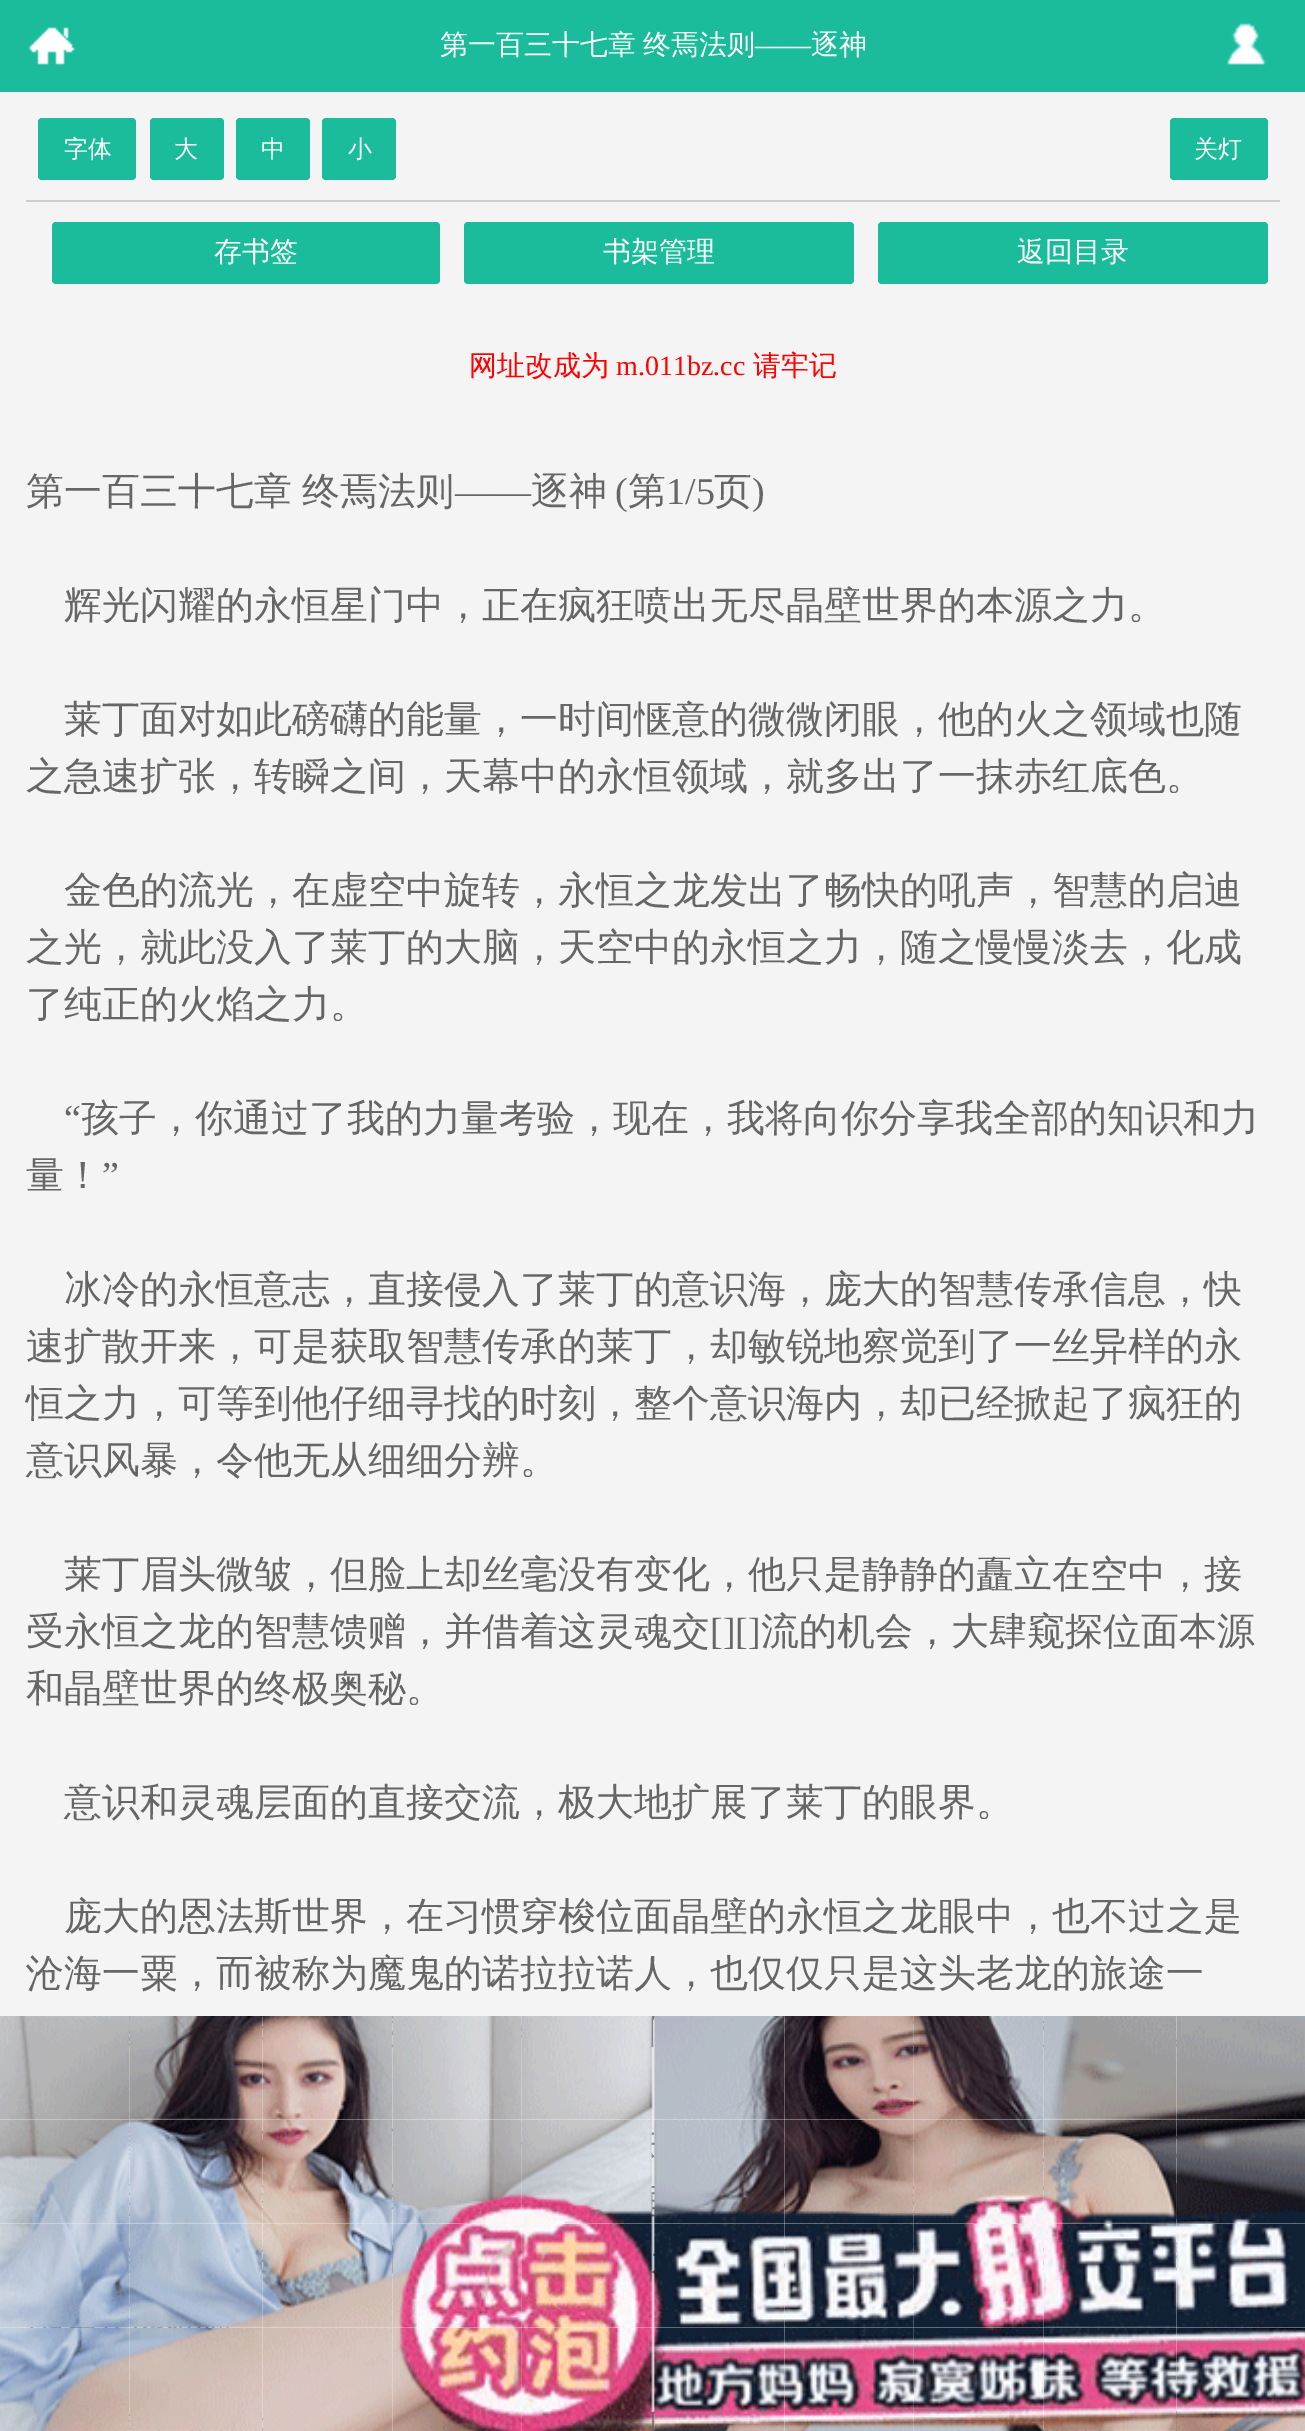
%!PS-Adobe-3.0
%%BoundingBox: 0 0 1305 2431
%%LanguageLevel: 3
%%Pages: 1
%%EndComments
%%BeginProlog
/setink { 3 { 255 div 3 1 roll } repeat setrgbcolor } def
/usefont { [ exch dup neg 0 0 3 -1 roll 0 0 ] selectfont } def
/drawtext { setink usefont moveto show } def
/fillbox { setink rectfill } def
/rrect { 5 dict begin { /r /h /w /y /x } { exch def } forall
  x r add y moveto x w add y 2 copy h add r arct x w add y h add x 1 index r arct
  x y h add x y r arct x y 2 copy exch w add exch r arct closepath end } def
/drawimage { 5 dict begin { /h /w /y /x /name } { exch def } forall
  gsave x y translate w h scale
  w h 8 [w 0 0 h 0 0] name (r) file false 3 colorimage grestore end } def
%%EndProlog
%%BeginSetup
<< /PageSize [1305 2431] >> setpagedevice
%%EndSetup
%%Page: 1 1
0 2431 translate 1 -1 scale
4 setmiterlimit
0 0 1305 2431 244 244 244 fillbox
0 0 1305 92 26 188 156 fillbox
(assets/img1.rgb) 29 27 46 38 drawimage
/WenQuanYiZenHei-Medium 28 usefont
255 255 255 setink
440 54 moveto -1 0 32 (第一百三十七章 终焉法则) widthshow
(——) 755 54 /LiberationSerif-Regular 28 255 255 255 drawtext
(逐神) 811 54 /WenQuanYiZenHei-Medium 28 255 255 255 drawtext
(assets/img2.rgb) 1227 23 40 42 drawimage
26 200 1254 2 204 204 204 fillbox
26 188 156 setink
38 118 98 62 4 rrect fill
(字体) 64 157 /WenQuanYiZenHei-Medium 24 255 255 255 drawtext
26 188 156 setink
150 118 74 62 4 rrect fill
(大) 174 157 /WenQuanYiZenHei-Medium 24 255 255 255 drawtext
26 188 156 setink
236 118 74 62 4 rrect fill
(中) 261 157 /WenQuanYiZenHei-Medium 24 255 255 255 drawtext
26 188 156 setink
322 118 74 62 4 rrect fill
(小) 348 157 /WenQuanYiZenHei-Medium 24 255 255 255 drawtext
26 188 156 setink
1170 118 98 62 4 rrect fill
(关灯) 1194 157 /WenQuanYiZenHei-Medium 24 255 255 255 drawtext
26 188 156 setink
52 222 388 62 4 rrect fill
(存书签) 214 261 /WenQuanYiZenHei-Medium 28 255 255 255 drawtext
26 188 156 setink
464 222 390 62 4 rrect fill
(书架管理) 603 261 /WenQuanYiZenHei-Medium 28 255 255 255 drawtext
26 188 156 setink
878 222 390 62 4 rrect fill
(返回目录) 1017 261 /WenQuanYiZenHei-Medium 28 255 255 255 drawtext
(网址改成为) 469 375 /WenQuanYiZenHei-Medium 28 255 0 0 drawtext
(m.011bz.cc) 616 375 /LiberationSerif-Regular 28 255 0 0 drawtext
(请牢记) 753 375 /WenQuanYiZenHei-Medium 28 255 0 0 drawtext
/WenQuanYiZenHei-Medium 38 usefont
102 102 102 setink
26 504 moveto -1 0 32 (第一百三十七章 终焉法则) widthshow
(——) 455 504 /LiberationSerif-Regular 38 102 102 102 drawtext
(逐神) 531 504 /WenQuanYiZenHei-Medium 38 102 102 102 drawtext
(\() 615 504 /LiberationSerif-Regular 38 102 102 102 drawtext
(第) 628 504 /WenQuanYiZenHei-Medium 38 102 102 102 drawtext
(1/5) 666 504 /LiberationSerif-Regular 38 102 102 102 drawtext
(页) 714 504 /WenQuanYiZenHei-Medium 38 102 102 102 drawtext
(\)) 752 504 /LiberationSerif-Regular 38 102 102 102 drawtext
(辉光闪耀的永恒星门中，正在疯狂喷出无尽晶壁世界的本源之力。) 64 618 /WenQuanYiZenHei-Medium 38 102 102 102 drawtext
(莱丁面对如此磅礴的能量，一时间惬意的微微闭眼，他的火之领域也随) 64 732 /WenQuanYiZenHei-Medium 38 102 102 102 drawtext
(之急速扩张，转瞬之间，天幕中的永恒领域，就多出了一抹赤红底色。) 26 789 /WenQuanYiZenHei-Medium 38 102 102 102 drawtext
(金色的流光，在虚空中旋转，永恒之龙发出了畅快的吼声，智慧的启迪) 64 903 /WenQuanYiZenHei-Medium 38 102 102 102 drawtext
(之光，就此没入了莱丁的大脑，天空中的永恒之力，随之慢慢淡去，化成) 26 960 /WenQuanYiZenHei-Medium 38 102 102 102 drawtext
(了纯正的火焰之力。) 26 1017 /WenQuanYiZenHei-Medium 38 102 102 102 drawtext
(“) 64 1131 /LiberationSerif-Regular 38 102 102 102 drawtext
(孩子，你通过了我的力量考验，现在，我将向你分享我全部的知识和力) 81 1131 /WenQuanYiZenHei-Medium 38 102 102 102 drawtext
(量！) 26 1188 /WenQuanYiZenHei-Medium 38 102 102 102 drawtext
(”) 102 1188 /LiberationSerif-Regular 38 102 102 102 drawtext
(冰冷的永恒意志，直接侵入了莱丁的意识海，庞大的智慧传承信息，快) 64 1302 /WenQuanYiZenHei-Medium 38 102 102 102 drawtext
(速扩散开来，可是获取智慧传承的莱丁，却敏锐地察觉到了一丝异样的永) 26 1359 /WenQuanYiZenHei-Medium 38 102 102 102 drawtext
(恒之力，可等到他仔细寻找的时刻，整个意识海内，却已经掀起了疯狂的) 26 1416 /WenQuanYiZenHei-Medium 38 102 102 102 drawtext
(意识风暴，令他无从细细分辨。) 26 1473 /WenQuanYiZenHei-Medium 38 102 102 102 drawtext
(莱丁眉头微皱，但脸上却丝毫没有变化，他只是静静的矗立在空中，接) 64 1587 /WenQuanYiZenHei-Medium 38 102 102 102 drawtext
(受永恒之龙的智慧馈赠，并借着这灵魂交) 26 1644 /WenQuanYiZenHei-Medium 38 102 102 102 drawtext
([][]) 710 1644 /LiberationSerif-Regular 38 102 102 102 drawtext
(流的机会，大肆窥探位面本源) 761 1644 /WenQuanYiZenHei-Medium 38 102 102 102 drawtext
(和晶壁世界的终极奥秘。) 26 1701 /WenQuanYiZenHei-Medium 38 102 102 102 drawtext
(意识和灵魂层面的直接交流，极大地扩展了莱丁的眼界。) 64 1815 /WenQuanYiZenHei-Medium 38 102 102 102 drawtext
(庞大的恩法斯世界，在习惯穿梭位面晶壁的永恒之龙眼中，也不过之是) 64 1929 /WenQuanYiZenHei-Medium 38 102 102 102 drawtext
(沧海一粟，而被称为魔鬼的诺拉拉诺人，也仅仅只是这头老龙的旅途一) 26 1986 /WenQuanYiZenHei-Medium 38 102 102 102 drawtext
(assets/img3.rgb) 0 2016 131 104 drawimage
(assets/img4.rgb) 130 2016 132 104 drawimage
(assets/img5.rgb) 261 2016 131 104 drawimage
(assets/img6.rgb) 392 2016 131 104 drawimage
(assets/img7.rgb) 522 2016 131 104 drawimage
(assets/img8.rgb) 653 2016 131 104 drawimage
(assets/img9.rgb) 783 2016 132 104 drawimage
(assets/img10.rgb) 914 2016 131 104 drawimage
(assets/img11.rgb) 1044 2016 132 104 drawimage
(assets/img12.rgb) 1175 2016 130 104 drawimage
(assets/img13.rgb) 0 2120 131 104 drawimage
(assets/img14.rgb) 130 2120 132 104 drawimage
(assets/img15.rgb) 261 2120 131 104 drawimage
(assets/img16.rgb) 392 2120 131 104 drawimage
(assets/img17.rgb) 522 2120 131 104 drawimage
(assets/img18.rgb) 653 2120 131 104 drawimage
(assets/img19.rgb) 783 2120 132 104 drawimage
(assets/img20.rgb) 914 2120 131 104 drawimage
(assets/img21.rgb) 1044 2120 132 104 drawimage
(assets/img22.rgb) 1175 2120 130 104 drawimage
(assets/img23.rgb) 0 2224 131 104 drawimage
(assets/img24.rgb) 130 2224 132 104 drawimage
(assets/img25.rgb) 261 2224 131 104 drawimage
(assets/img26.rgb) 391 2224 132 104 drawimage
(assets/img27.rgb) 522 2224 131 104 drawimage
(assets/img28.rgb) 653 2224 131 104 drawimage
(assets/img29.rgb) 783 2224 132 104 drawimage
(assets/img30.rgb) 914 2224 131 104 drawimage
(assets/img31.rgb) 1044 2224 132 104 drawimage
(assets/img32.rgb) 1175 2224 130 104 drawimage
(assets/img33.rgb) 0 2328 131 103 drawimage
(assets/img34.rgb) 130 2328 132 103 drawimage
(assets/img35.rgb) 262 2328 130 103 drawimage
(assets/img36.rgb) 392 2328 130 103 drawimage
(assets/img37.rgb) 522 2328 131 103 drawimage
(assets/img38.rgb) 653 2328 131 103 drawimage
(assets/img39.rgb) 783 2328 131 103 drawimage
(assets/img40.rgb) 914 2328 131 103 drawimage
(assets/img41.rgb) 1044 2328 132 103 drawimage
(assets/img42.rgb) 1175 2328 130 103 drawimage
showpage
%%EOF
